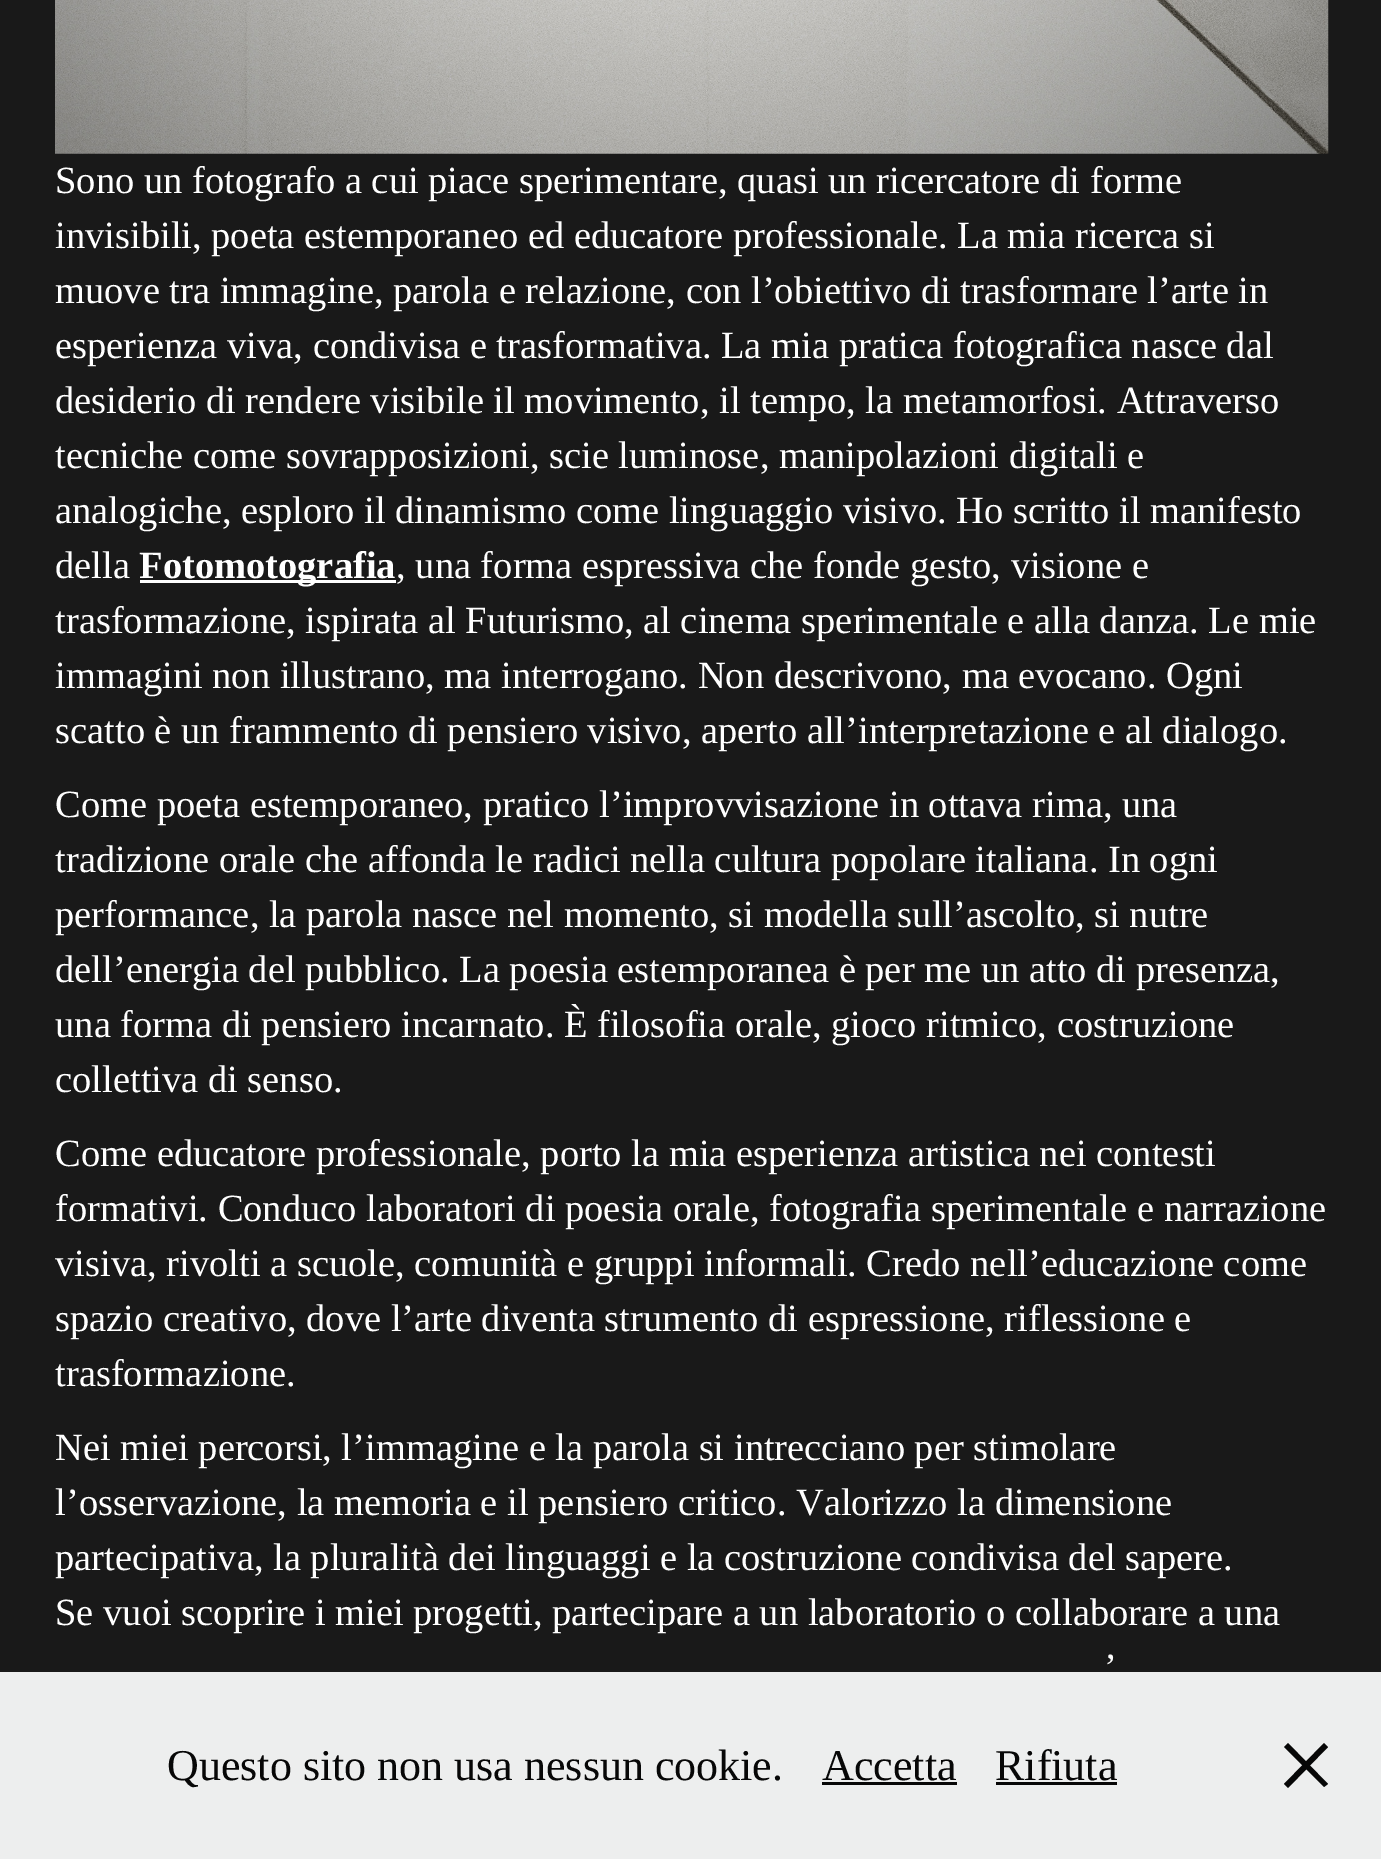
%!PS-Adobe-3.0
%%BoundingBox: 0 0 1381 1859
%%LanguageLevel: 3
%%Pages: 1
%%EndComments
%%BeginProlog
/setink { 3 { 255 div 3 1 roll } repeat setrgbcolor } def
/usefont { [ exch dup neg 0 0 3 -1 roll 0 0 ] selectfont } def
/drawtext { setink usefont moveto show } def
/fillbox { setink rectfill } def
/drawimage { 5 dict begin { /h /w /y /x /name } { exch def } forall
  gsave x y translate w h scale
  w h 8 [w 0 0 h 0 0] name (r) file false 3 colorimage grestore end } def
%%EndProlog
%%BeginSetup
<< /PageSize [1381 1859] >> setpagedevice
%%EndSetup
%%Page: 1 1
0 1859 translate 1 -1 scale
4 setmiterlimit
0 0 1381 1859 25 25 25 fillbox
(assets/img1.rgb) 55 0 1274 154 drawimage
(Sono un fotografo a cui piace sperimentare, quasi un ricercatore di forme) 55 193 /LiberationSerif-Regular 38.5 255 255 255 drawtext
(invisibili, poeta estemporaneo ed educatore professionale. La mia ricerca si) 55 248 /LiberationSerif-Regular 38.5 255 255 255 drawtext
(muove tra immagine, parola e relazione, con l’obiettivo di trasformare l’arte in) 55 303 /LiberationSerif-Regular 38.5 255 255 255 drawtext
(esperienza viva, condivisa e trasformativa. La mia pratica fotografica nasce dal) 55 358 /LiberationSerif-Regular 38.5 255 255 255 drawtext
(desiderio di rendere visibile il movimento, il tempo, la metamorfosi. Attraverso) 55 413 /LiberationSerif-Regular 38.5 255 255 255 drawtext
(tecniche come sovrapposizioni, scie luminose, manipolazioni digitali e) 55 468 /LiberationSerif-Regular 38.5 255 255 255 drawtext
(analogiche, esploro il dinamismo come linguaggio visivo. Ho scritto il manifesto) 55 523 /LiberationSerif-Regular 38.5 255 255 255 drawtext
(della) 55 578 /LiberationSerif-Regular 38.5 255 255 255 drawtext
140 580 256 3 255 255 255 fillbox
(Fotomotografia) 139 578 /LiberationSerif-Bold 38.5 255 255 255 drawtext
(, una forma espressiva che fonde gesto, visione e) 396 578 /LiberationSerif-Regular 38.5 255 255 255 drawtext
(trasformazione, ispirata al Futurismo, al cinema sperimentale e alla danza. Le mie) 55 633 /LiberationSerif-Regular 38.5 255 255 255 drawtext
(immagini non illustrano, ma interrogano. Non descrivono, ma evocano. Ogni) 55 688 /LiberationSerif-Regular 38.5 255 255 255 drawtext
(scatto è un frammento di pensiero visivo, aperto all’interpretazione e al dialogo.) 55 743 /LiberationSerif-Regular 38.5 255 255 255 drawtext
(Come poeta estemporaneo, pratico l’improvvisazione in ottava rima, una) 55 817 /LiberationSerif-Regular 38.5 255 255 255 drawtext
(tradizione orale che affonda le radici nella cultura popolare italiana. In ogni) 55 872 /LiberationSerif-Regular 38.5 255 255 255 drawtext
(performance, la parola nasce nel momento, si modella sull’ascolto, si nutre) 55 927 /LiberationSerif-Regular 38.5 255 255 255 drawtext
(dell’energia del pubblico. La poesia estemporanea è per me un atto di presenza,) 55 982 /LiberationSerif-Regular 38.5 255 255 255 drawtext
(una forma di pensiero incarnato. È filosofia orale, gioco ritmico, costruzione) 55 1037 /LiberationSerif-Regular 38.5 255 255 255 drawtext
(collettiva di senso.) 55 1092 /LiberationSerif-Regular 38.5 255 255 255 drawtext
(Come educatore professionale, porto la mia esperienza artistica nei contesti) 55 1166 /LiberationSerif-Regular 38.5 255 255 255 drawtext
(formativi. Conduco laboratori di poesia orale, fotografia sperimentale e narrazione) 55 1221 /LiberationSerif-Regular 38.5 255 255 255 drawtext
(visiva, rivolti a scuole, comunità e gruppi informali. Credo nell’educazione come) 55 1276 /LiberationSerif-Regular 38.5 255 255 255 drawtext
(spazio creativo, dove l’arte diventa strumento di espressione, riflessione e) 55 1331 /LiberationSerif-Regular 38.5 255 255 255 drawtext
(trasformazione.) 55 1386 /LiberationSerif-Regular 38.5 255 255 255 drawtext
(Nei miei percorsi, l’immagine e la parola si intrecciano per stimolare) 55 1460 /LiberationSerif-Regular 38.5 255 255 255 drawtext
(l’osservazione, la memoria e il pensiero critico. Valorizzo la dimensione) 55 1515 /LiberationSerif-Regular 38.5 255 255 255 drawtext
(partecipativa, la pluralità dei linguaggi e la costruzione condivisa del sapere.) 55 1570 /LiberationSerif-Regular 38.5 255 255 255 drawtext
(Se vuoi scoprire i miei progetti, partecipare a un laboratorio o collaborare a una) 55 1625 /LiberationSerif-Regular 38.5 255 255 255 drawtext
(’) 1104 1680 /LiberationSerif-Regular 38.5 255 255 255 drawtext
0 1672 1381 187 237 238 238 fillbox
(Questo sito non usa nessun cookie.) 167 1780 /LiberationSerif-Regular 44 7 7 7 drawtext
(Accetta) 822 1780 /LiberationSerif-Regular 44 7 7 7 drawtext
822 1782 135 3 7 7 7 fillbox
(Rifiuta) 995 1780 /LiberationSerif-Regular 44 7 7 7 drawtext
996 1782 121 3 7 7 7 fillbox
1284 1747 moveto 1288 1743 lineto 1328 1784 lineto 1324 1787 lineto closepath fill
1288 1788 moveto 1284 1784 lineto 1324 1743 lineto 1328 1747 lineto closepath fill
showpage
%%EOF
